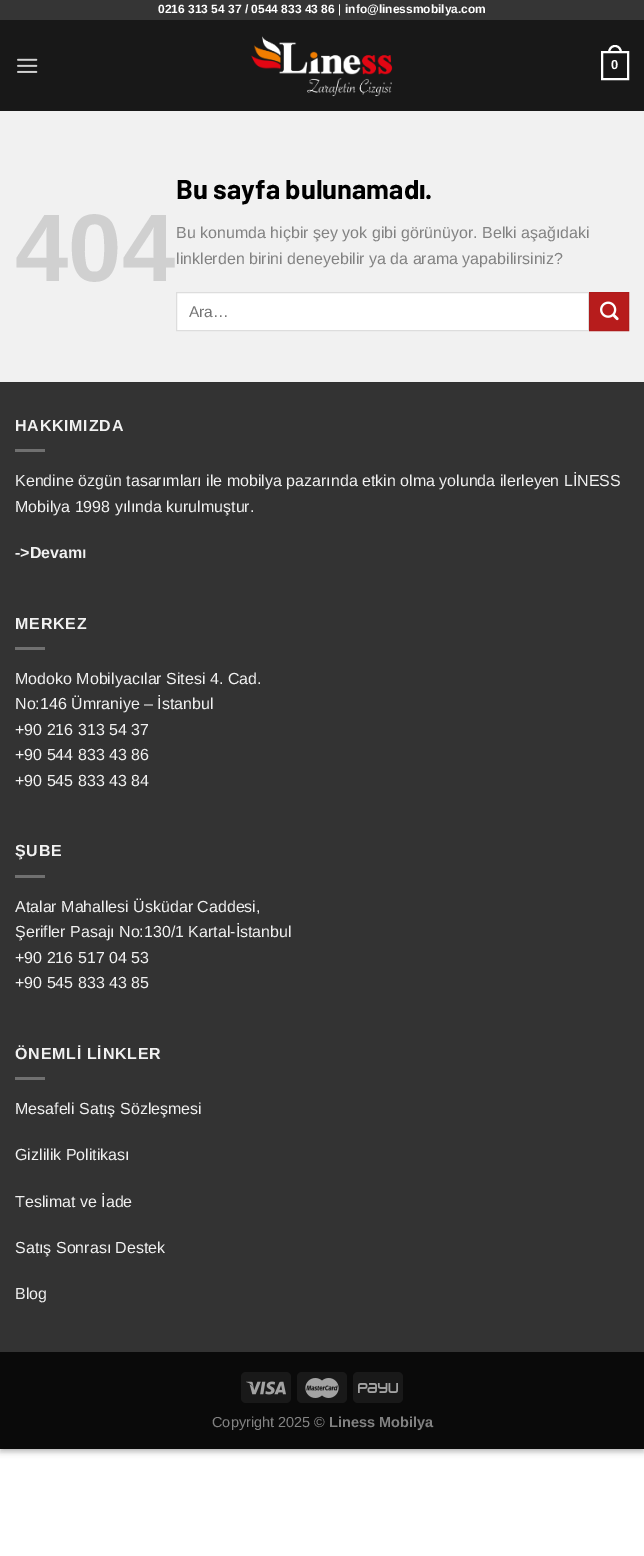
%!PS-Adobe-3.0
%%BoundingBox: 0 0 644 1556
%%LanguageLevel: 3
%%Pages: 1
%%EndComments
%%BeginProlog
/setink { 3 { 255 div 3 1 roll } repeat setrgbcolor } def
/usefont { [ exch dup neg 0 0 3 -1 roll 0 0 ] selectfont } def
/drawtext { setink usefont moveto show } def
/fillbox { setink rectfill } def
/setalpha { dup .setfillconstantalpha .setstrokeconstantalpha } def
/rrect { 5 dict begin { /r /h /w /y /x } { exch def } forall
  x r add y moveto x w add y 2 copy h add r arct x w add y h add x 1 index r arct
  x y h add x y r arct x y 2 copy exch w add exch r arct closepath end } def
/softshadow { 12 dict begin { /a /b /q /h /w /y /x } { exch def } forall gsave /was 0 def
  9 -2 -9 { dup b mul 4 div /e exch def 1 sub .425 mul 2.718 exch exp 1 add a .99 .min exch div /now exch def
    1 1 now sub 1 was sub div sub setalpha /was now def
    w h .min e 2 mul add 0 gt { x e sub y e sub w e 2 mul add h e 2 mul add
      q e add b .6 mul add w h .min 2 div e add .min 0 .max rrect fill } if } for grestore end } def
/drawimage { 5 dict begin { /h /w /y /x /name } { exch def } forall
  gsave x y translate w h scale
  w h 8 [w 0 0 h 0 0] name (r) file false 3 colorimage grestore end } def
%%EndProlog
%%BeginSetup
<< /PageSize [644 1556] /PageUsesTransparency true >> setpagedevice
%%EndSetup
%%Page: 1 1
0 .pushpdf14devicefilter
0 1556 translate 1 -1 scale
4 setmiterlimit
0 0 644 1556 255 255 255 fillbox
0 0 0 setink
0 3 644 1449 0 3 0.23 softshadow
4 7 636 1441 0 3 0.16 softshadow
0 111 644 271 241 241 241 fillbox
0 0 644 20 53 53 53 fillbox
(0216 313 54 37 / 0544 833 43 86) 158 13 /LiberationSans-Bold 12 255 255 255 drawtext
(|) 338 13 /LiberationSans-Regular 12 255 255 255 drawtext
(info@linessmobilya.com) 345 13 /LiberationSans-Bold 12 255 255 255 drawtext
0 20 644 91 24 24 24 fillbox
(assets/img1.rgb) 17 58 21 15 drawimage
(assets/img2.rgb) 251 36 142 61 drawimage
255 255 255 setink
2 setlinewidth
602 52 26 27 rectstroke
615 45 moveto 619.5 45 622 49 622 53 curveto 608 53 lineto 608 49 610.5 45 615 45 curveto closepath 615 47 moveto 618.5 47 620 50 620 53 curveto 610 53 lineto 610 50 611.5 47 615 47 curveto closepath eofill
(0) 611 69 /LiberationSans-Bold 13 255 255 255 drawtext
(404) 15 281 /LiberationSans-Bold 96 208 208 208 drawtext
(Bu sayfa bulunamadı.) 176 199 /Barlow-Bold 27.25 0 0 0 drawtext
(Bu konumda hiçbir şey yok gibi görünüyor. Belki aşağıdaki) 176 238 /LiberationSans-Regular 16 130 130 130 drawtext
(linklerden birini deneyebilir ya da arama yapabilirsiniz?) 176 264 /LiberationSans-Regular 16 130 130 130 drawtext
255 255 255 setink
176.5 292.5 moveto 588.5 292.5 lineto 588.5 330.5 lineto 176.5 330.5 lineto closepath gsave fill grestore
221 221 221 setink
1 setlinewidth
stroke
(Ara…) 189 317 /LiberationSans-Regular 15.5 117 117 117 drawtext
183 28 28 setink
589.5 292.5 moveto 628.5 292.5 lineto 628.5 330.5 lineto 589.5 330.5 lineto closepath gsave fill grestore
174 27 27 setink
stroke
(assets/img3.rgb) 600 301 19 20 drawimage
0 383 644 969 51 51 51 fillbox
0 382 644 1 48 48 48 fillbox
/LiberationSans-Bold 16 usefont
241 241 241 setink
15 431 moveto 0.75 0 (HAKKIMIZDA) ashow
15 449 30 3 112 112 112 fillbox
(Kendine özgün tasarımları ile mobilya pazarında etkin olma yolunda ilerleyen LİNESS) 15 486 /LiberationSans-Regular 16 241 241 241 drawtext
(Mobilya 1998 yılında kurulmuştur.) 15 512 /LiberationSans-Regular 16 241 241 241 drawtext
(->Devamı) 15 558 /LiberationSans-Bold 16 241 241 241 drawtext
15 629 moveto 0.75 0 (MERKEZ) ashow
15 647 30 3 112 112 112 fillbox
(Modoko Mobilyacılar Sitesi 4. Cad.) 15 684 /LiberationSans-Regular 16 241 241 241 drawtext
(No:146 Ümraniye – İstanbul) 15 709 /LiberationSans-Regular 16 241 241 241 drawtext
(+90 216 313 54 37) 15 735 /LiberationSans-Regular 16 241 241 241 drawtext
(+90 544 833 43 86) 15 760 /LiberationSans-Regular 16 241 241 241 drawtext
(+90 545 833 43 84) 15 786 /LiberationSans-Regular 16 241 241 241 drawtext
/LiberationSans-Bold 16 usefont
15 856 moveto 0.75 0 (ŞUBE) ashow
15 875 30 3 112 112 112 fillbox
(Atalar Mahallesi Üsküdar Caddesi,) 15 912 /LiberationSans-Regular 16 241 241 241 drawtext
(Şerifler Pasajı No:130/1 Kartal-İstanbul) 15 937 /LiberationSans-Regular 16 241 241 241 drawtext
(+90 216 517 04 53) 15 963 /LiberationSans-Regular 16 241 241 241 drawtext
(+90 545 833 43 85) 15 988 /LiberationSans-Regular 16 241 241 241 drawtext
/LiberationSans-Bold 16 usefont
15 1059 moveto 0.75 0 (ÖNEMLİ LİNKLER) ashow
15 1077 30 3 112 112 112 fillbox
(Mesafeli Satış Sözleşmesi) 15 1114 /LiberationSans-Regular 16 241 241 241 drawtext
(Gizlilik Politikası) 15 1160 /LiberationSans-Regular 16 241 241 241 drawtext
(Teslimat ve İade) 15 1207 /LiberationSans-Regular 16 241 241 241 drawtext
(Satış Sonrası Destek) 15 1253 /LiberationSans-Regular 16 241 241 241 drawtext
(Blog) 15 1299 /LiberationSans-Regular 16 241 241 241 drawtext
0 1352 644 97 10 10 10 fillbox
25 25 25 setink
241 1372 50 31 5 rrect fill
(assets/img4.rgb) 246 1381 40 14 drawimage
297 1372 50 31 5 rrect fill
(assets/img5.rgb) 305 1378 34 20 drawimage
353 1372 50 31 5 rrect fill
(assets/img6.rgb) 358 1383 40 10 drawimage
(Copyright 2025 ©) 212 1427 /LiberationSans-Regular 14.5 130 130 130 drawtext
(Liness Mobilya) 329 1427 /LiberationSans-Bold 14.5 130 130 130 drawtext
.poppdf14devicefilter showpage
%%EOF
